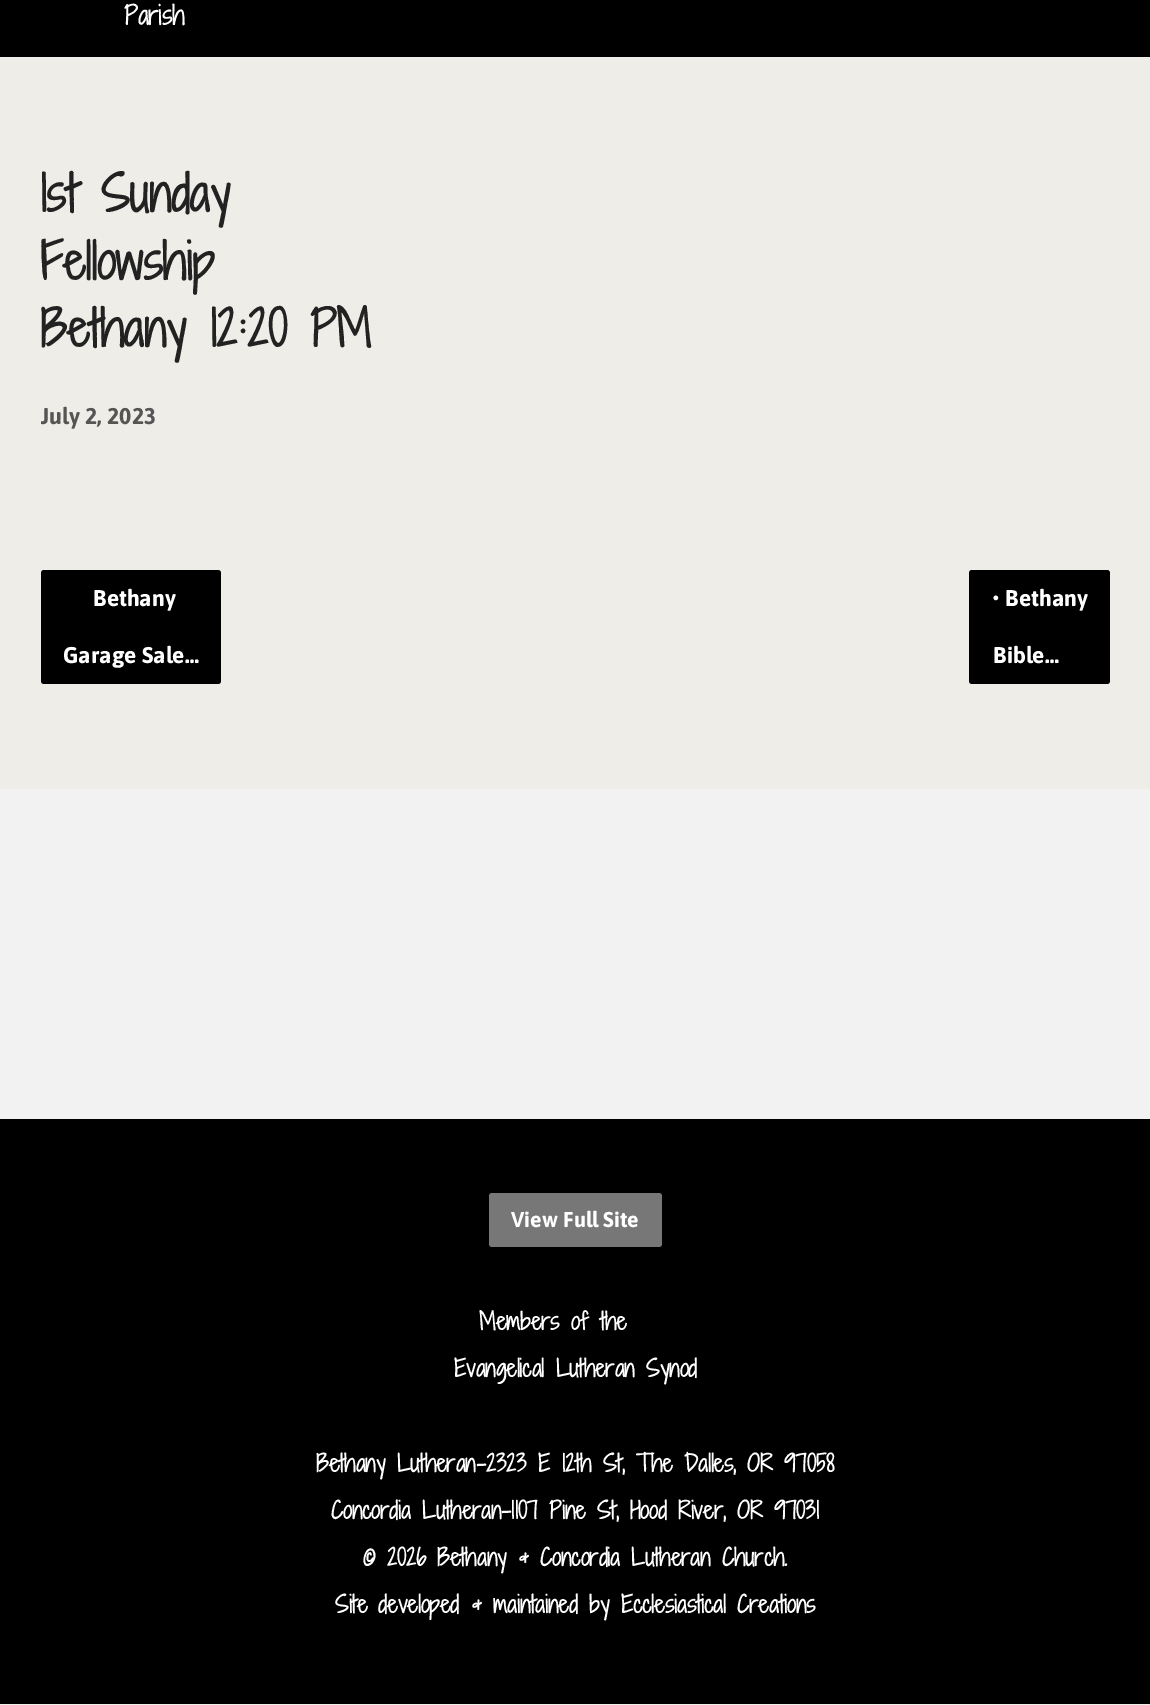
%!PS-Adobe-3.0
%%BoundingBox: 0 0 1150 1705
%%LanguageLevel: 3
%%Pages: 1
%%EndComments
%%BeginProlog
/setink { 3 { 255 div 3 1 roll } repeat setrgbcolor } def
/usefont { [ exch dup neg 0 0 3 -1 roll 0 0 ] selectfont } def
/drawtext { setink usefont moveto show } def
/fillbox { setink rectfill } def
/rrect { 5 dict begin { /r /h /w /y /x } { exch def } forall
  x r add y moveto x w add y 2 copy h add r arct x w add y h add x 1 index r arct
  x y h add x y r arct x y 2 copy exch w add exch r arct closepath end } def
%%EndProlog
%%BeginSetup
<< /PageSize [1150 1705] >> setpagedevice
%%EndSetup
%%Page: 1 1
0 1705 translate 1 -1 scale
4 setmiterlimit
0 0 1150 1705 238 237 231 fillbox
0 0 1150 57 0 0 0 fillbox
(Parish) 124 25 /ShadowsIntoLightTwo-Bold 25 255 255 255 drawtext
(1st Sunday) 40 212 /ShadowsIntoLightTwo-Bold 48 34 34 34 drawtext
(Fellowship) 40 280 /ShadowsIntoLightTwo-Bold 48 34 34 34 drawtext
(Bethany 12:20 PM) 40 347 /ShadowsIntoLightTwo-Bold 48 34 34 34 drawtext
gsave
41 162 1069 273 rectclip
(July 2, 2023) 40 424 /Asap-Bold 22.8 85 85 85 drawtext
grestore
0 0 0 setink
41 570 180 114 3 rrect fill
(Bethany) 93 606 /Asap-Bold 22.8 255 255 255 drawtext
(Garage Sale…) 63 663 /Asap-Bold 22.8 255 255 255 drawtext
0 0 0 setink
969 570 141 114 3 rrect fill
(• Bethany) 992 606 /Asap-Bold 22.8 255 255 255 drawtext
(Bible…) 993 663 /Asap-Bold 22.8 255 255 255 drawtext
0 1119 1150 585 0 0 0 fillbox
0 789 1150 330 242 242 242 fillbox
119 119 119 setink
489 1193 173 54 3 rrect fill
(View Full Site) 511 1227 /Asap-Bold 21.5 255 255 255 drawtext
(Members of the) 479 1330 /ShadowsIntoLightTwo-Bold 22.8 255 255 255 drawtext
(Evangelical Lutheran Synod) 454 1377 /ShadowsIntoLightTwo-Bold 22.8 255 255 255 drawtext
(Bethany Lutheran-2323 E 12th St, The Dalles, OR 97058) 316 1472 /ShadowsIntoLightTwo-Bold 22.8 255 255 255 drawtext
(Concordia Lutheran-1107 Pine St, Hood River, OR 97031) 331 1519 /ShadowsIntoLightTwo-Bold 22.8 255 255 255 drawtext
(© 2026 Bethany & Concordia Lutheran Church.) 363 1566 /ShadowsIntoLightTwo-Bold 22.8 255 255 255 drawtext
(Site developed & maintained by Ecclesiastical Creations) 335 1613 /ShadowsIntoLightTwo-Bold 22.8 255 255 255 drawtext
showpage
%%EOF
